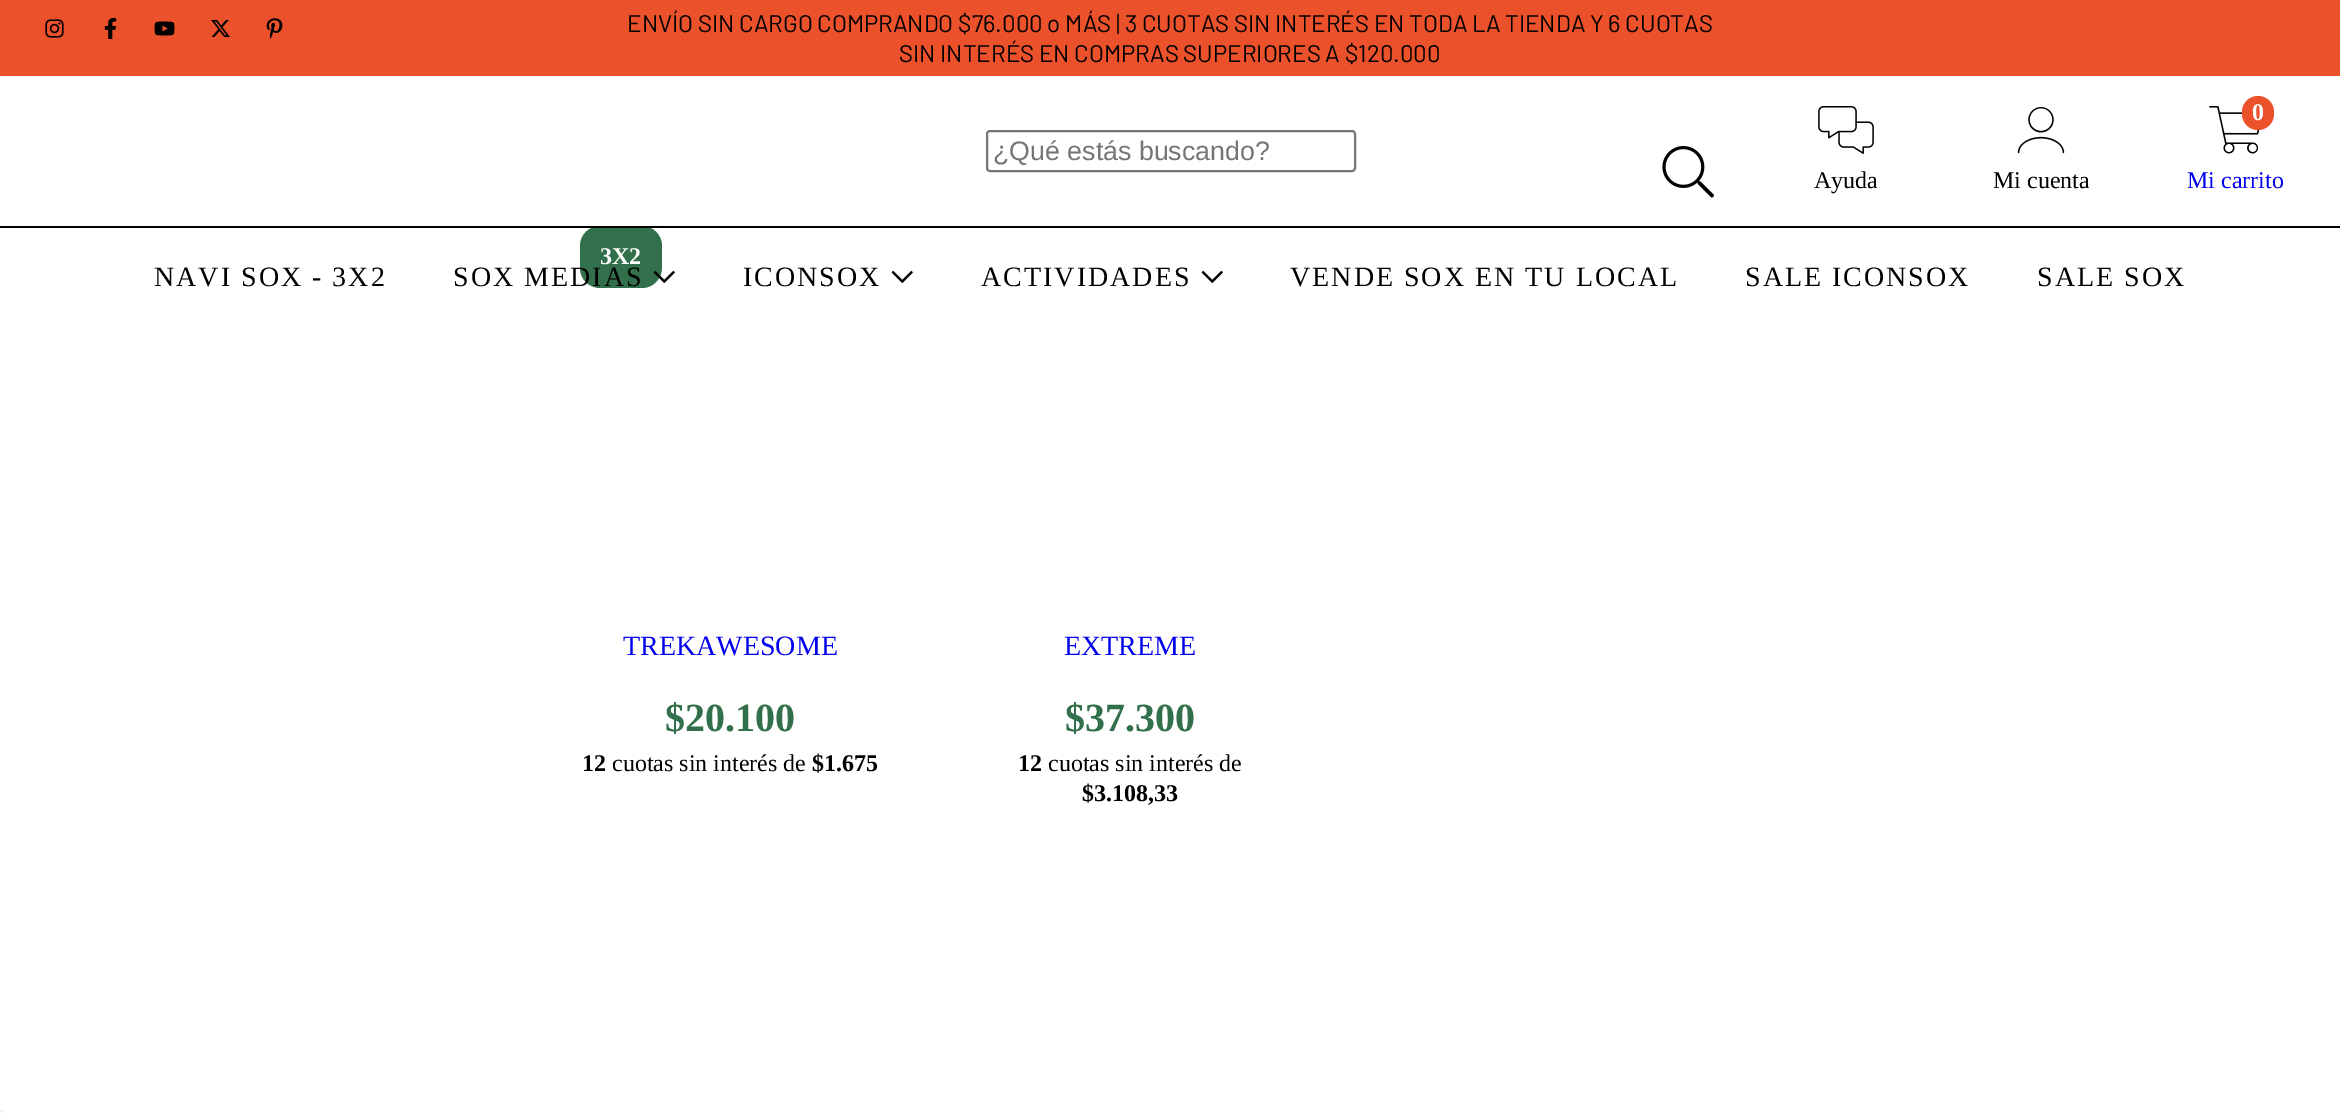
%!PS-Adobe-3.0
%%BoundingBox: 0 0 2340 1113
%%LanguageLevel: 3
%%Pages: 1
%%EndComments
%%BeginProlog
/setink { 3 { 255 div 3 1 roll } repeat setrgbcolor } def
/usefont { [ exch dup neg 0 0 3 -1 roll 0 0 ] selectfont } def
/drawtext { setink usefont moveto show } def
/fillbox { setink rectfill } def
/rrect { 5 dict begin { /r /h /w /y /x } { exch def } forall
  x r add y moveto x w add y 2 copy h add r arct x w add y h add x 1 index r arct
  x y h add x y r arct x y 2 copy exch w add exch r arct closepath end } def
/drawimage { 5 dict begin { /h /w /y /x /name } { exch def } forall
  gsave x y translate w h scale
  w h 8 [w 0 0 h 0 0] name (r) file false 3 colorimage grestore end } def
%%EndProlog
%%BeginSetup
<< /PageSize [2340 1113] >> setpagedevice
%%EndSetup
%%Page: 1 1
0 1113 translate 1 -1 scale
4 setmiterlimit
0 0 2340 1113 255 255 255 fillbox
0 0 2340 76 235 82 43 fillbox
(assets/img1.rgb) 45 19 19 19 drawimage
(assets/img2.rgb) 104 18 13 21 drawimage
(assets/img3.rgb) 154 21 21 15 drawimage
(assets/img4.rgb) 211 20 19 17 drawimage
(assets/img5.rgb) 266 18 17 21 drawimage
(ENVÍO SIN CARGO COMPRANDO $76.000 o MÁS | 3 CUOTAS SIN INTERÉS EN TODA LA TIENDA Y 6 CUOTAS) 627 32 /Barlow-Regular 24 0 0 0 drawtext
(SIN INTERÉS EN COMPRAS SUPERIORES A $120.000) 899 62 /Barlow-Regular 24 0 0 0 drawtext
118 118 118 setink
2 setlinewidth
987 131 368 40 3 rrect stroke
(¿Qué estás buscando?) 993 160 /LiberationSans-Regular 26.75 117 117 117 drawtext
(assets/img6.rgb) 1662 146 52 52 drawimage
(assets/img7.rgb) 1818 106 56 48 drawimage
(Ayuda) 1814 188 /LiberationSerif-Regular 24 0 0 0 drawtext
(assets/img8.rgb) 2017 107 48 47 drawimage
(Mi cuenta) 1993 188 /LiberationSerif-Regular 24 0 0 0 drawtext
(assets/img9.rgb) 2209 106 51 48 drawimage
235 82 43 setink
2242 96 32 34 16 rrect fill
(0) 2252 120 /LiberationSerif-Bold 24 255 255 255 drawtext
(Mi carrito) 2187 188 /LiberationSerif-Regular 24 0 0 238 drawtext
49 112 74 setink
580 226 82 62 20 rrect fill
0 226 2340 2 0 0 0 fillbox
/LiberationSerif-Regular 28 usefont
154 286 moveto 2 0 (NAVI SOX - 3X2) ashow
453 286 moveto 2 0 (SOX MEDIAS) ashow
(assets/img10.rgb) 653 270 22 13 drawimage
743 286 moveto 2 0 (ICONSOX) ashow
(assets/img11.rgb) 891 270 22 13 drawimage
981 286 moveto 2 0 (ACTIVIDADES) ashow
(assets/img11.rgb) 1201 270 22 13 drawimage
1290 286 moveto 2 0 (VENDE SOX EN TU LOCAL) ashow
1745 286 moveto 2 0 (SALE ICONSOX) ashow
2037 286 moveto 2 0 (SALE SOX) ashow
(3X2) 600 264 /LiberationSerif-Bold 24 255 255 255 drawtext
(TREKAWESOME) 623 655 /LiberationSerif-Regular 28 0 0 238 drawtext
($20.100) 665 731 /LiberationSerif-Bold 40 49 112 74 drawtext
(12) 582 771 /LiberationSerif-Bold 24 0 0 0 drawtext
(cuotas sin interés de) 612 771 /LiberationSerif-Regular 24 0 0 0 drawtext
($1.675) 812 771 /LiberationSerif-Bold 24 0 0 0 drawtext
(EXTREME) 1064 655 /LiberationSerif-Regular 28 0 0 238 drawtext
($37.300) 1065 731 /LiberationSerif-Bold 40 49 112 74 drawtext
(12) 1018 771 /LiberationSerif-Bold 24 0 0 0 drawtext
(cuotas sin interés de) 1048 771 /LiberationSerif-Regular 24 0 0 0 drawtext
($3.108,33) 1082 801 /LiberationSerif-Bold 24 0 0 0 drawtext
0 1110 4 3 245 245 245 fillbox
showpage
%%EOF
